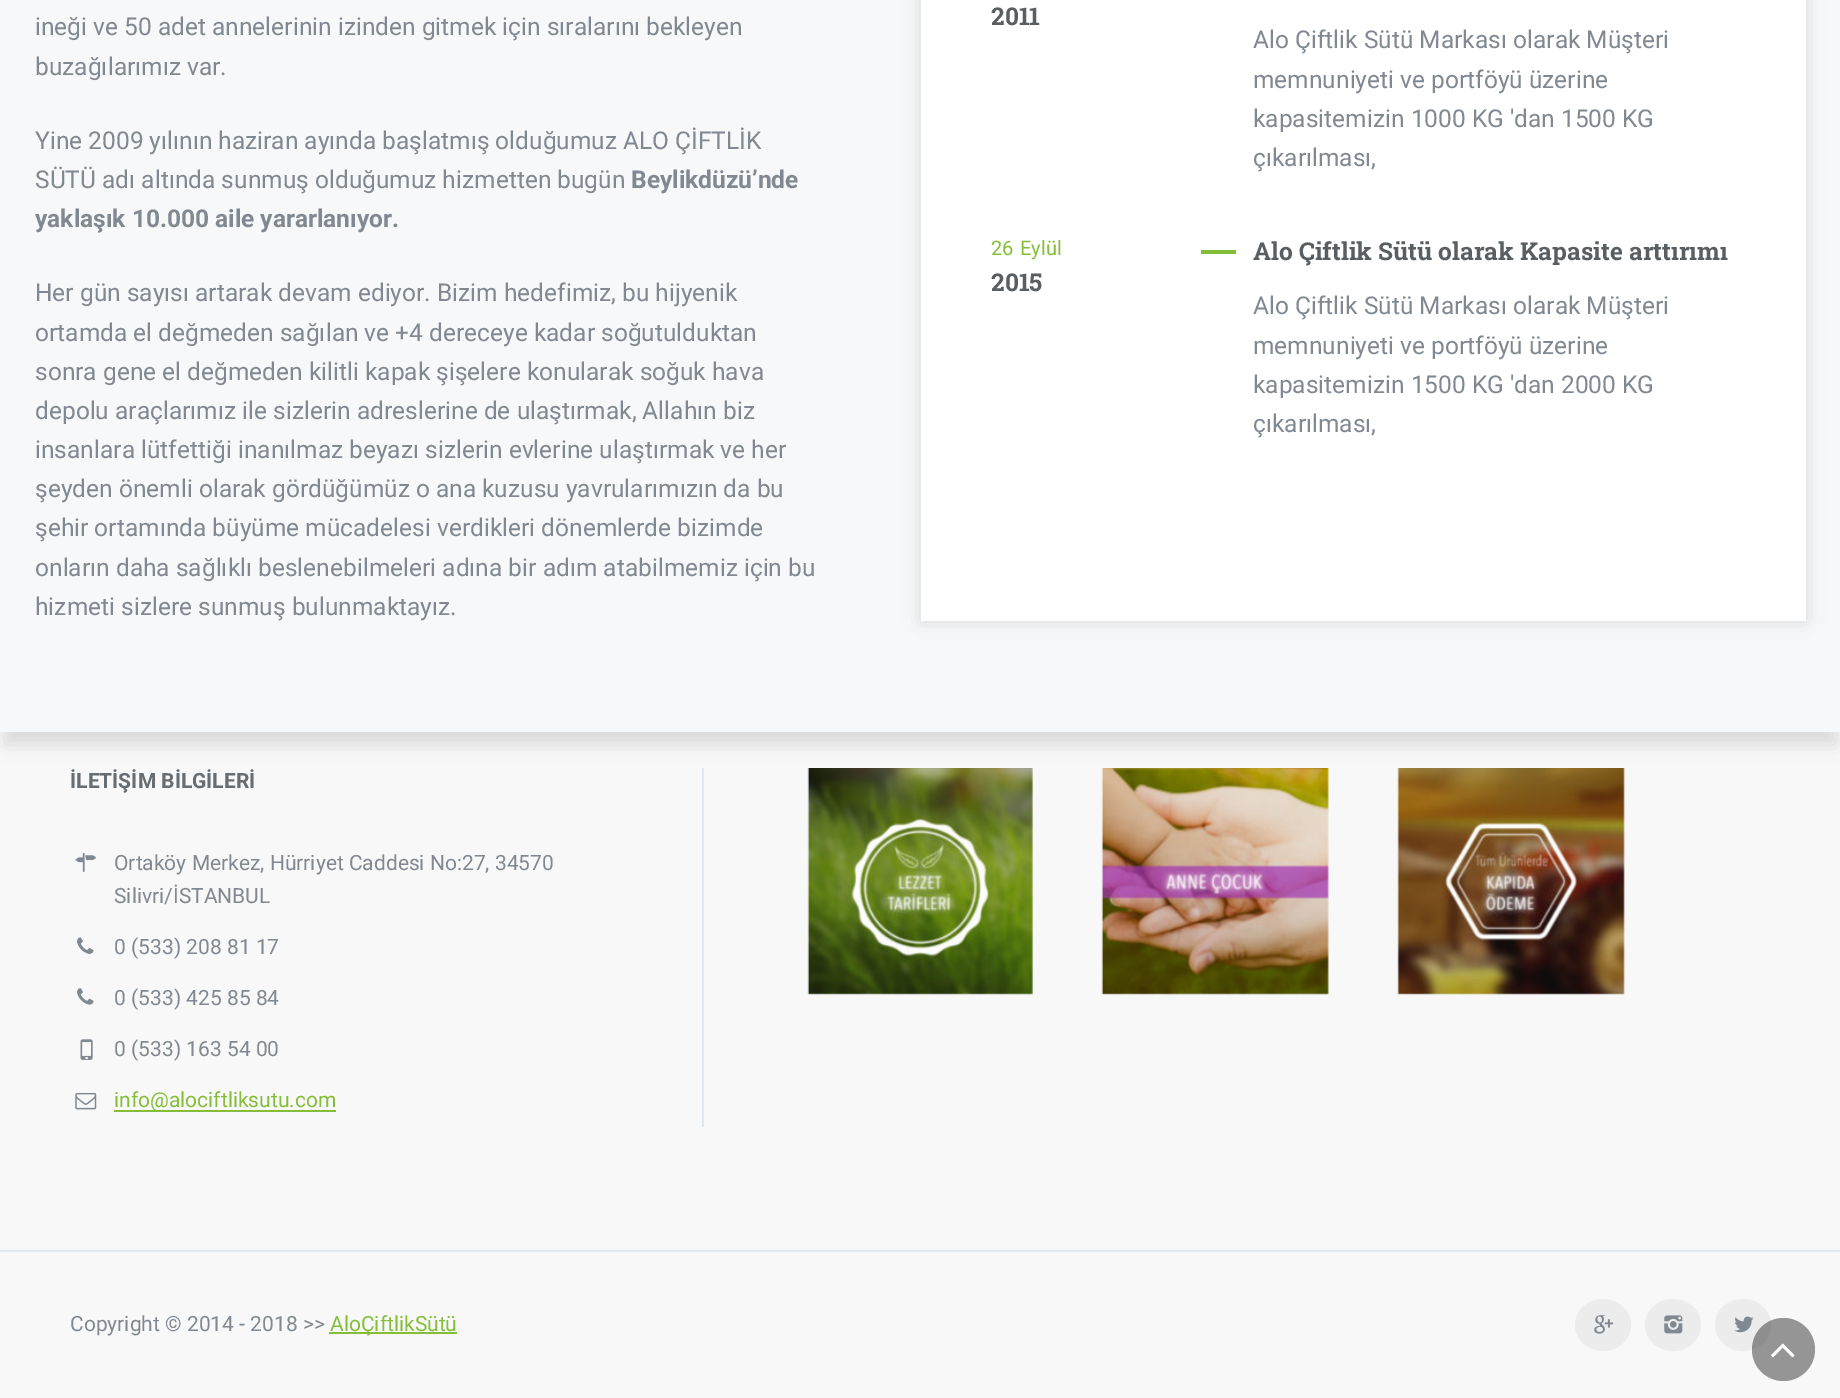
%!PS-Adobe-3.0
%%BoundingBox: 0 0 1840 1398
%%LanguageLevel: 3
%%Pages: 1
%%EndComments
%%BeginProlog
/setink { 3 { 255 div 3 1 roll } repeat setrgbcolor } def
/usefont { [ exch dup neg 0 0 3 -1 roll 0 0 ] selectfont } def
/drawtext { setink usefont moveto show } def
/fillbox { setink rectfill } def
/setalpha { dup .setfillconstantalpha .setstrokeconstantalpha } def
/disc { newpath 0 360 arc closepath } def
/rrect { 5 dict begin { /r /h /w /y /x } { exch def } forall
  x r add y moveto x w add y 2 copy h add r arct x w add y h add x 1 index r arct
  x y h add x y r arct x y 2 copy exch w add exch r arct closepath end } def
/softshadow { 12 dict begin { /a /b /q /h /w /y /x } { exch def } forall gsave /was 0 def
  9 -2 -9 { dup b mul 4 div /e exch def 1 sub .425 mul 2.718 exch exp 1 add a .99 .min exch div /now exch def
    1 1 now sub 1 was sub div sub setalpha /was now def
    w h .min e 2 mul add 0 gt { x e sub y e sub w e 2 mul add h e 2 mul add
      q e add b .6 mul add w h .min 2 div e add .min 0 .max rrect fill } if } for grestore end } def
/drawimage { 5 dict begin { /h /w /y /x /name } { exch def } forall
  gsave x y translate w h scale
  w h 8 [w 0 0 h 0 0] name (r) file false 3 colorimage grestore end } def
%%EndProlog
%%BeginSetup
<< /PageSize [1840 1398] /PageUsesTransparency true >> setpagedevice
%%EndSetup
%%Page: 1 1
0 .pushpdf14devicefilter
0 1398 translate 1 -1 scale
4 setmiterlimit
0 0 1840 1398 248 248 248 fillbox
702 768 2 359 225 232 238 fillbox
(assets/img6.rgb) 807 768 226 227 drawimage
(assets/img7.rgb) 1101 768 228 227 drawimage
(assets/img8.rgb) 1397 768 228 227 drawimage
0 0 0 setink
5 -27 1831 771 0 9 0.12 softshadow
0 0 1840 732 247 248 249 fillbox
(ineği ve 50 adet annelerinin izinden gitmek için sıralarını bekleyen) 35 35 /Roboto-Regular 24.5 128 136 145 drawtext
(buzağılarımız var.) 35 75 /Roboto-Regular 24.5 128 136 145 drawtext
(Yine 2009 yılının haziran ayında başlatmış olduğumuz ALO ÇİFTLİK) 35 149 /Roboto-Regular 24.5 128 136 145 drawtext
(SÜTÜ adı altında sunmuş olduğumuz hizmetten bugün) 35 188 /Roboto-Regular 24.5 128 136 145 drawtext
(Beylikdüzü’nde) 631 188 /Roboto-Bold 24.5 128 136 145 drawtext
(yaklaşık 10.000 aile yararlanıyor.) 35 227 /Roboto-Bold 24.5 128 136 145 drawtext
(Her gün sayısı artarak devam ediyor. Bizim hedefimiz, bu hijyenik) 35 301 /Roboto-Regular 24.5 128 136 145 drawtext
(ortamda el değmeden sağılan ve +4 dereceye kadar soğutulduktan) 35 341 /Roboto-Regular 24.5 128 136 145 drawtext
(sonra gene el değmeden kilitli kapak şişelere konularak soğuk hava) 35 380 /Roboto-Regular 24.5 128 136 145 drawtext
(depolu araçlarımız ile sizlerin adreslerine de ulaştırmak, Allahın biz) 35 419 /Roboto-Regular 24.5 128 136 145 drawtext
(insanlara lütfettiği inanılmaz beyazı sizlerin evlerine ulaştırmak ve her) 35 458 /Roboto-Regular 24.5 128 136 145 drawtext
(şeyden önemli olarak gördüğümüz o ana kuzusu yavrularımızın da bu) 35 497 /Roboto-Regular 24.5 128 136 145 drawtext
(şehir ortamında büyüme mücadelesi verdikleri dönemlerde bizimde) 35 536 /Roboto-Regular 24.5 128 136 145 drawtext
(onların daha sağlıklı beslenebilmeleri adına bir adım atabilmemiz için bu) 35 576 /Roboto-Regular 24.5 128 136 145 drawtext
(hizmeti sizlere sunmuş bulunmaktayız.) 35 615 /Roboto-Regular 24.5 128 136 145 drawtext
0 0 0 setink
921 -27 885 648 0 9 0.12 softshadow
921 0 885 621 255 255 255 fillbox
(2011) 991 25 /RobotoSlab-Bold 24.5 88 94 97 drawtext
(Alo Çiftlik Sütü Markası olarak Müşteri) 1253 48 /Roboto-Regular 24.5 128 136 145 drawtext
(memnuniyeti ve portföyü üzerine) 1253 88 /Roboto-Regular 24.5 128 136 145 drawtext
(kapasitemizin 1000 KG 'dan 1500 KG) 1253 127 /Roboto-Regular 24.5 128 136 145 drawtext
(çıkarılması,) 1253 166 /Roboto-Regular 24.5 128 136 145 drawtext
(26) 991 255 /Roboto-Regular 20 132 190 56 drawtext
(Eylül) 1020 255 /Roboto-Regular 20 132 190 56 drawtext
1201 250 35 4 132 190 56 fillbox
(2015) 991 291 /RobotoSlab-Bold 24.5 88 94 97 drawtext
(Alo Çiftlik Sütü olarak Kapasite arttırımı) 1253 260 /RobotoSlab-Bold 24.5 88 94 97 drawtext
(Alo Çiftlik Sütü Markası olarak Müşteri) 1253 314 /Roboto-Regular 24.5 128 136 145 drawtext
(memnuniyeti ve portföyü üzerine) 1253 354 /Roboto-Regular 24.5 128 136 145 drawtext
(kapasitemizin 1500 KG 'dan 2000 KG) 1253 393 /Roboto-Regular 24.5 128 136 145 drawtext
(çıkarılması,) 1253 432 /Roboto-Regular 24.5 128 136 145 drawtext
(İLETİŞİM BİLGİLERİ) 70 788 /Roboto-Bold 21 102 109 115 drawtext
(assets/img1.rgb) 75 852 22 20 drawimage
(Ortaköy Merkez, Hürriyet Caddesi No:27, 34570) 114 870 /Roboto-Regular 21 128 136 145 drawtext
(Silivri/İSTANBUL) 114 903 /Roboto-Regular 21 128 136 145 drawtext
(assets/img2.rgb) 77 937 17 17 drawimage
(0 \(533\) 208 81 17) 114 954 /Roboto-Regular 21 128 136 145 drawtext
(assets/img3.rgb) 77 988 17 17 drawimage
(0 \(533\) 425 85 84) 114 1005 /Roboto-Regular 21 128 136 145 drawtext
(assets/img4.rgb) 80 1039 13 21 drawimage
(0 \(533\) 163 54 00) 114 1056 /Roboto-Regular 21 128 136 145 drawtext
(assets/img5.rgb) 75 1092 22 18 drawimage
114 1110 222 2 132 190 56 fillbox
(info@alociftliksutu.com) 114 1107 /Roboto-Regular 21 132 190 56 drawtext
0 1250 1840 2 225 232 238 fillbox
(Copyright © 2014 - 2018 >>) 70 1331 /Roboto-Regular 21 128 136 145 drawtext
329 1332 128 2 132 190 56 fillbox
(AloÇiftlikSütü) 330 1331 /Roboto-Regular 21 132 190 56 drawtext
236 236 236 setink
1603 1299 moveto 1618.5 1299 1631 1310.5 1631 1325 curveto 1631 1339.5 1618.5 1351 1603 1351 curveto 1587.5 1351 1575 1339.5 1575 1325 curveto 1575 1310.5 1587.5 1299 1603 1299 curveto closepath fill
(assets/img9.rgb) 1594 1315 20 19 drawimage
1673 1299 moveto 1688.5 1299 1701 1310.5 1701 1325 curveto 1701 1339.5 1688.5 1351 1673 1351 curveto 1657.5 1351 1645 1339.5 1645 1325 curveto 1645 1310.5 1657.5 1299 1673 1299 curveto closepath fill
(assets/img10.rgb) 1664 1315 19 19 drawimage
1743 1299 moveto 1758.5 1299 1771 1310.5 1771 1325 curveto 1771 1339.5 1758.5 1351 1743 1351 curveto 1727.5 1351 1715 1339.5 1715 1325 curveto 1715 1310.5 1727.5 1299 1743 1299 curveto closepath fill
(assets/img11.rgb) 1734 1316 20 17 drawimage
0.4 setalpha
0 0 0 setink
1783.5 1349.5 31.5 disc fill
1 setalpha
(assets/img12.rgb) 1771 1343 24 15 drawimage
.poppdf14devicefilter showpage
%%EOF
